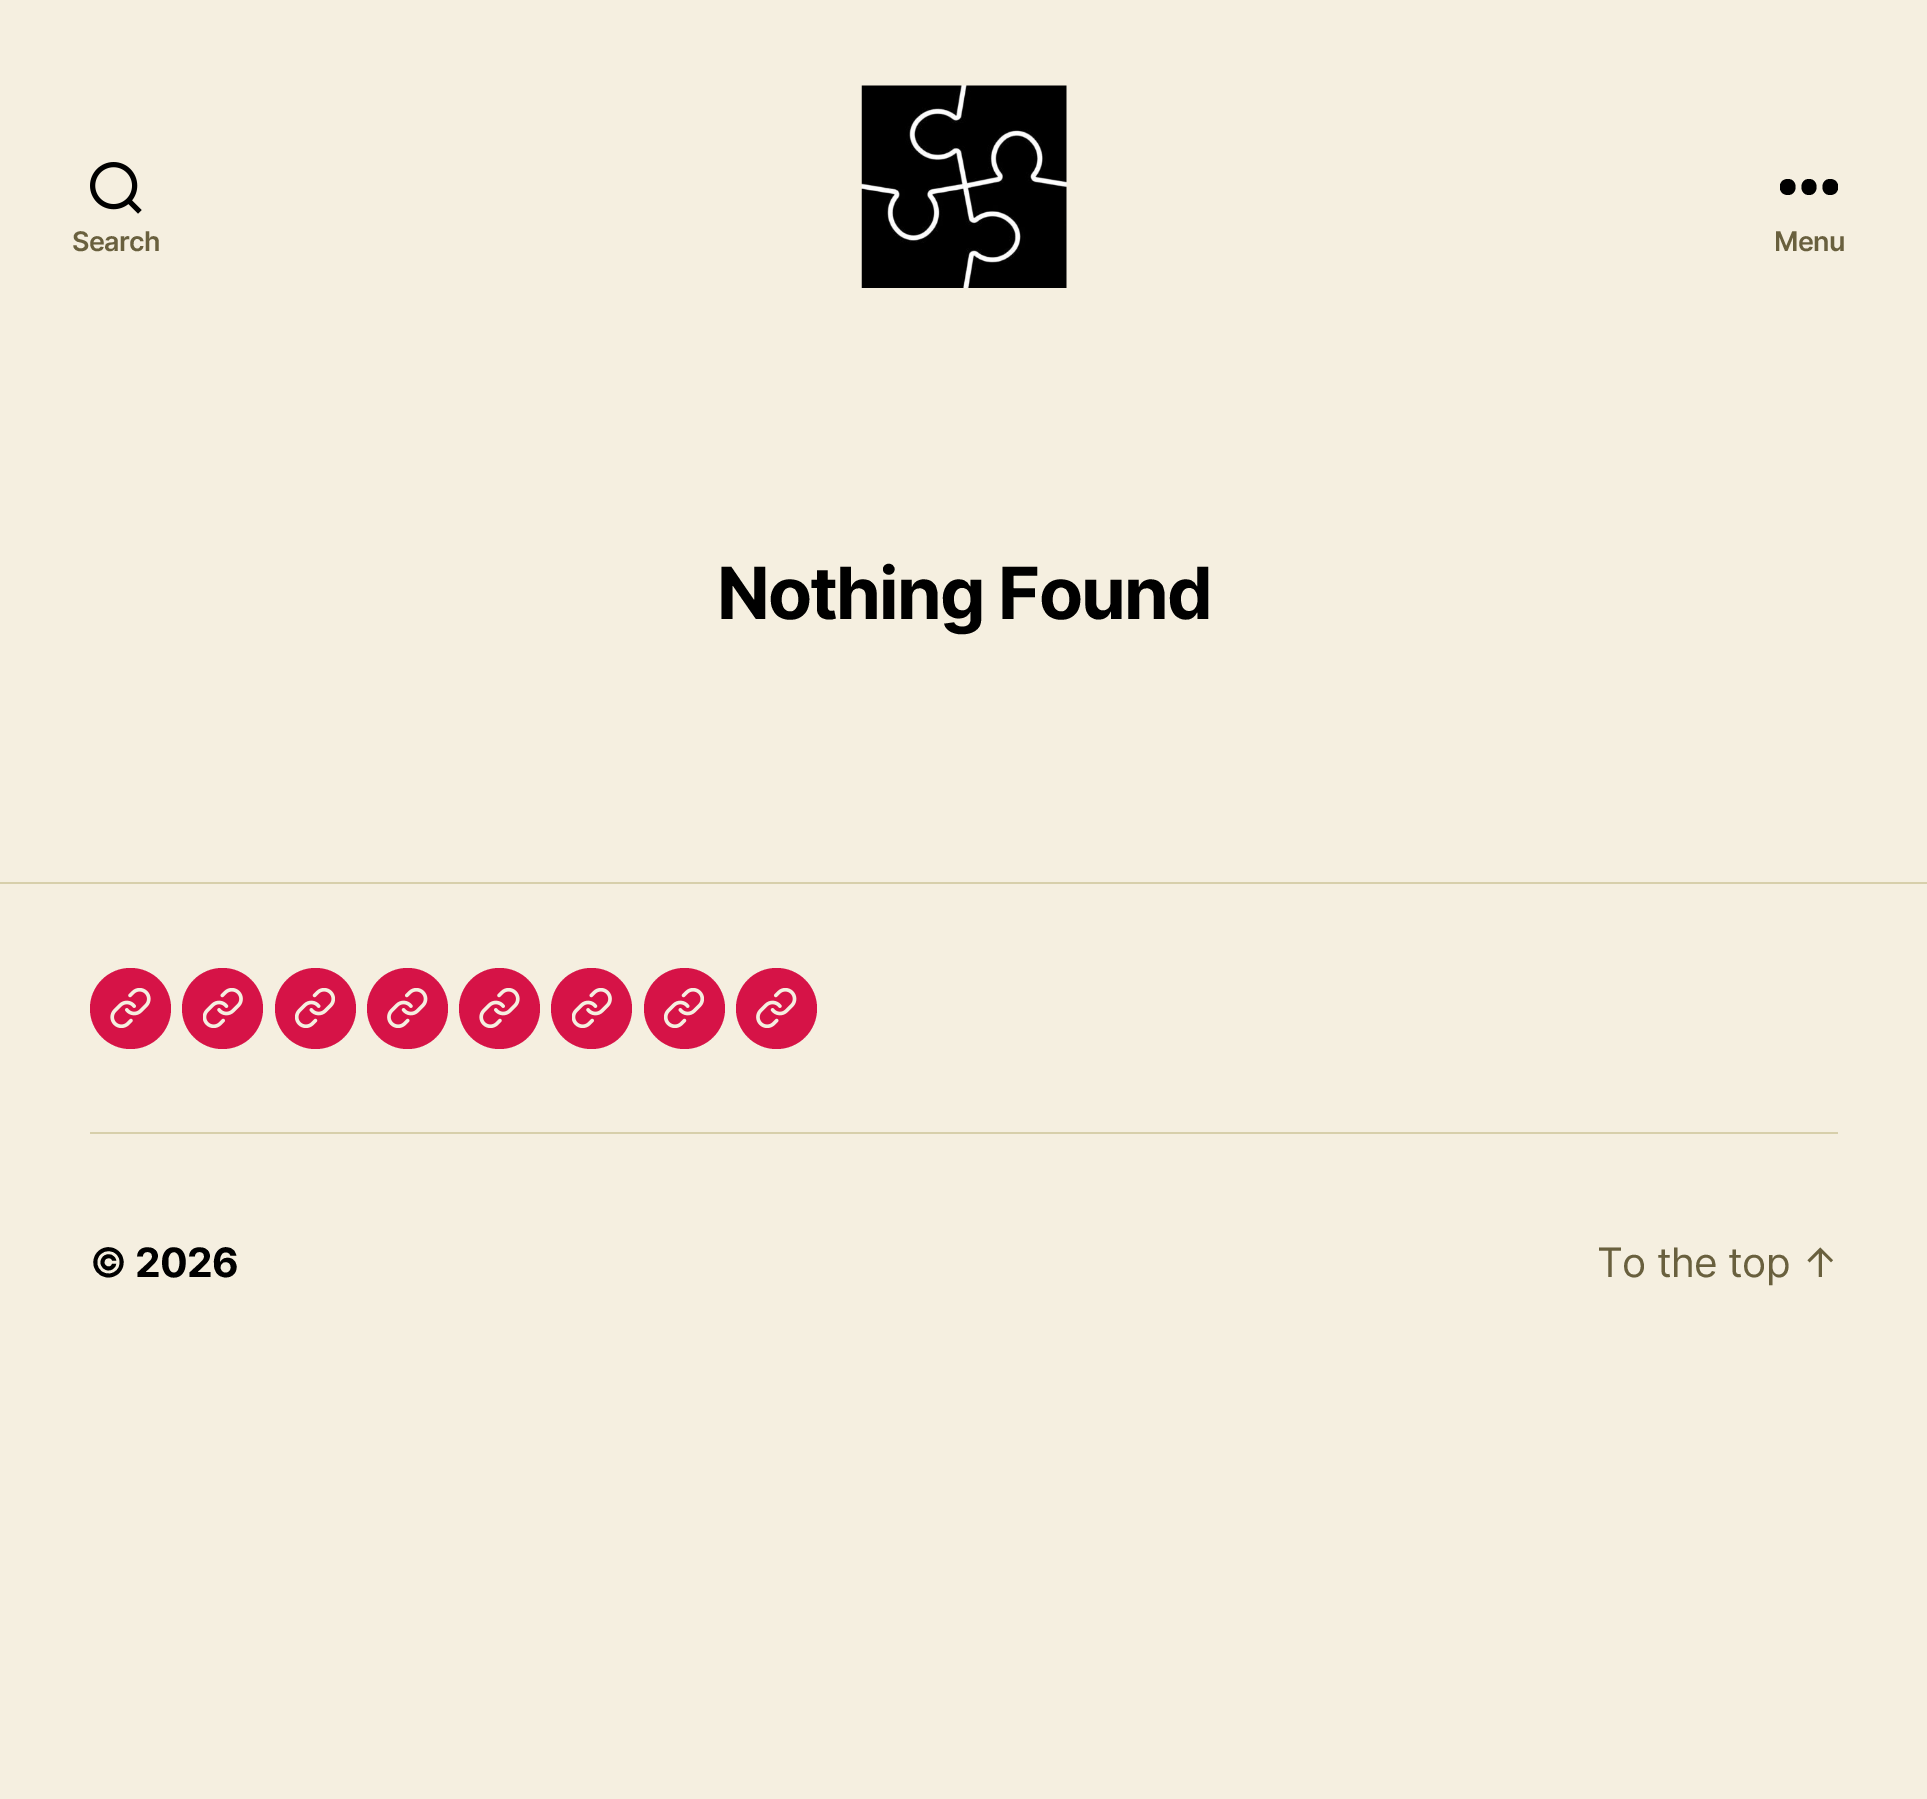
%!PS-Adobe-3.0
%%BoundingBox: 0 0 1927 1799
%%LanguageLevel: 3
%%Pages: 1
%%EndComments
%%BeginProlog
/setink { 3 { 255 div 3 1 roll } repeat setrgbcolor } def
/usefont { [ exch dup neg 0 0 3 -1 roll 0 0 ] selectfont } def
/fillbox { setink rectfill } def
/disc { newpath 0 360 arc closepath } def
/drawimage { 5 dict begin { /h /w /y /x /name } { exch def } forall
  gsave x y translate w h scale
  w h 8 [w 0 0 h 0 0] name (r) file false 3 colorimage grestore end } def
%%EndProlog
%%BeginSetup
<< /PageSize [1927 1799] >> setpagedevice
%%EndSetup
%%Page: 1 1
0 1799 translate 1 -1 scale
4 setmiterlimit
0 0 1927 1799 245 239 224 fillbox
(assets/img1.rgb) 90 162 52 52 drawimage
/Inter-SemiBold 27 usefont
105 96 62 setink
72 251 moveto -0.6 0 (Search) ashow
(assets/img2.rgb) 861 85 206 203 drawimage
gsave
1780 178 58 18 rectclip
0 0 0 setink
1788 195 moveto 1777 195 1777 179 1788 179 curveto 1798 179 1798 195 1788 195 curveto closepath 1809 195 moveto 1799 195 1799 179 1809 179 curveto 1819 179 1819 195 1809 195 curveto closepath 1830 195 moveto 1820 195 1820 179 1830 179 curveto 1841 179 1841 195 1830 195 curveto closepath eofill
grestore
1774 251 moveto -0.6 0 (Menu) ashow
/Inter-Bold 72 usefont
0 0 0 setink
717 619 moveto -1.9 0 (Nothing Found) ashow
0 882 1927 2 215 207 171 fillbox
90 1132 1748 2 215 207 171 fillbox
214 19 71 setink
130.5 1008.5 40.5 disc fill
(assets/img3.rgb) 110 988 41 40 drawimage
222.5 1008.5 40.5 disc fill
(assets/img4.rgb) 203 988 40 40 drawimage
315.5 1008.5 40.5 disc fill
(assets/img5.rgb) 295 988 40 40 drawimage
407.5 1008.5 40.5 disc fill
(assets/img6.rgb) 387 988 41 40 drawimage
499.5 1008.5 40.5 disc fill
(assets/img3.rgb) 479 988 41 40 drawimage
591.5 1008.5 40.5 disc fill
(assets/img4.rgb) 572 988 40 40 drawimage
684.5 1008.5 40.5 disc fill
(assets/img5.rgb) 664 988 40 40 drawimage
776.5 1008.5 40.5 disc fill
(assets/img6.rgb) 756 988 41 40 drawimage
/Inter-Bold 40.5 usefont
0 0 0 setink
90 1277 moveto -0.6 0 (© 2026) ashow
/Inter-Regular 40.5 usefont
105 96 62 setink
1597 1277 moveto -0.6 0 (To the top ↑) ashow
showpage
%%EOF
